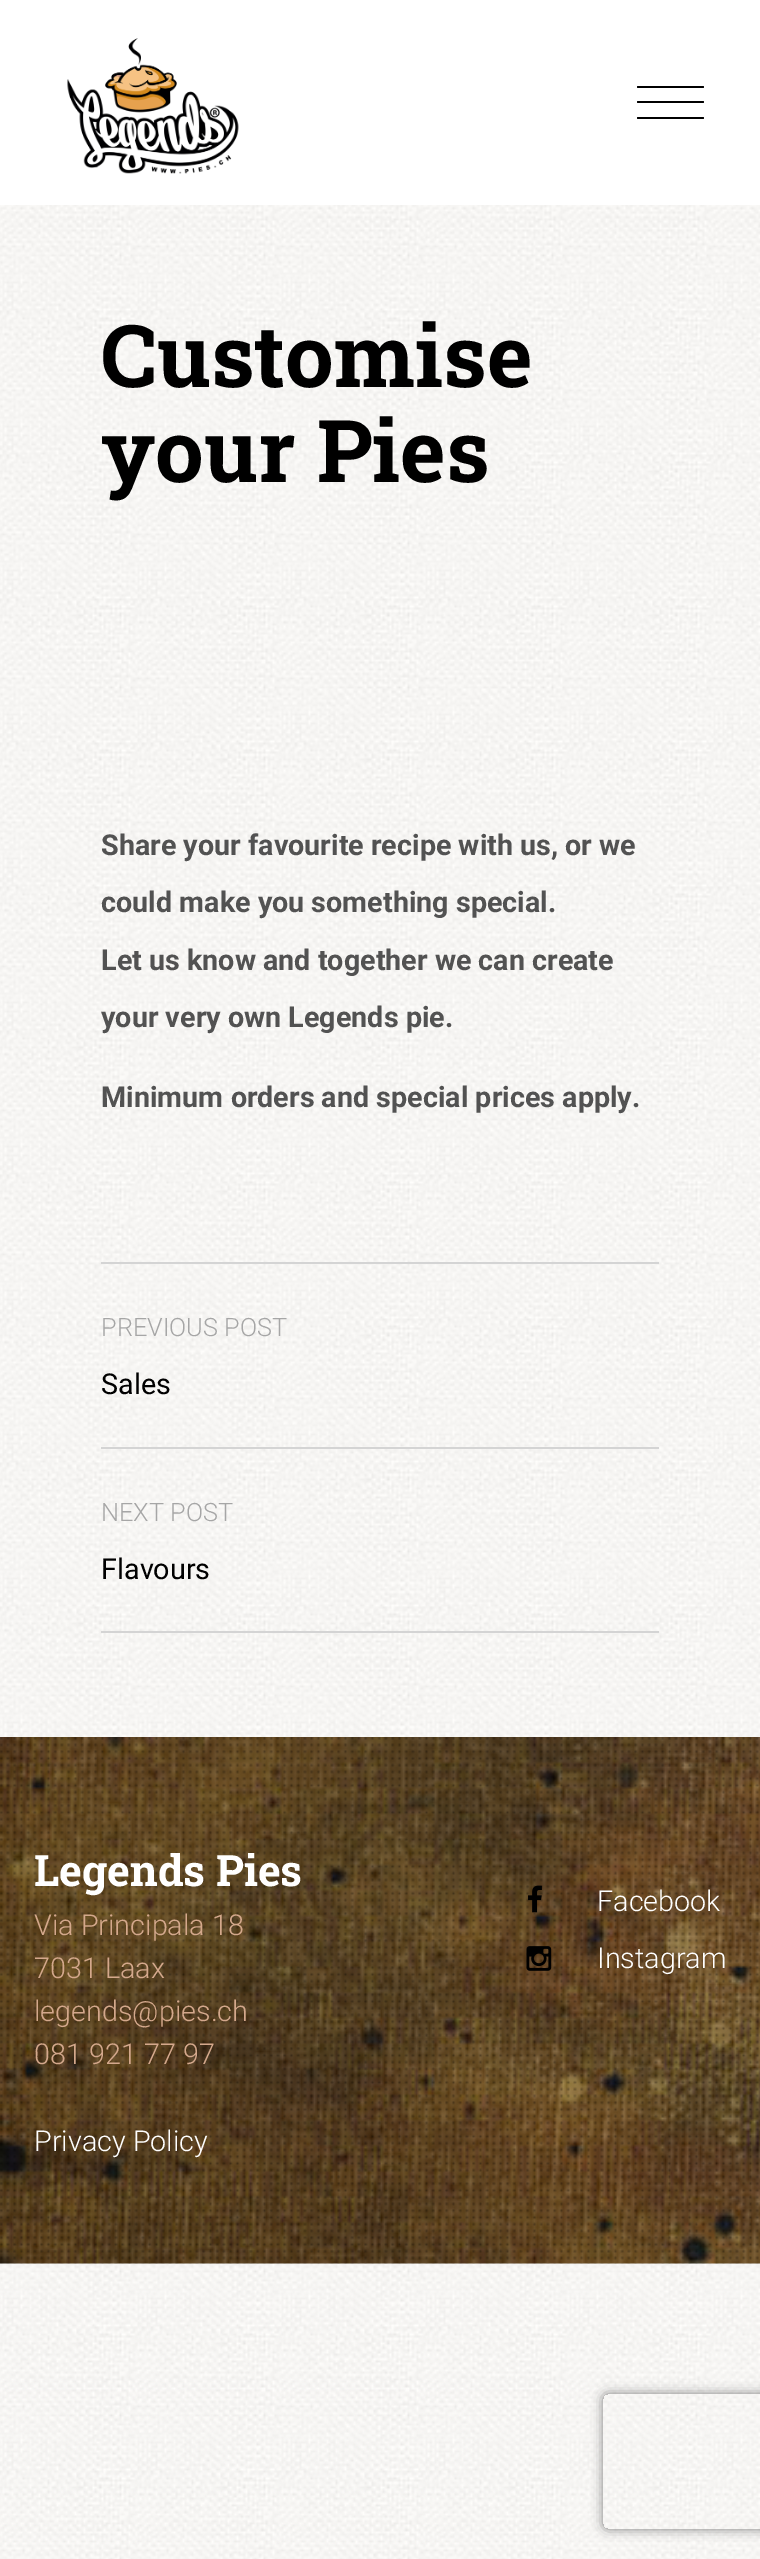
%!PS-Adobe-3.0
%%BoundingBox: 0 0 760 2559
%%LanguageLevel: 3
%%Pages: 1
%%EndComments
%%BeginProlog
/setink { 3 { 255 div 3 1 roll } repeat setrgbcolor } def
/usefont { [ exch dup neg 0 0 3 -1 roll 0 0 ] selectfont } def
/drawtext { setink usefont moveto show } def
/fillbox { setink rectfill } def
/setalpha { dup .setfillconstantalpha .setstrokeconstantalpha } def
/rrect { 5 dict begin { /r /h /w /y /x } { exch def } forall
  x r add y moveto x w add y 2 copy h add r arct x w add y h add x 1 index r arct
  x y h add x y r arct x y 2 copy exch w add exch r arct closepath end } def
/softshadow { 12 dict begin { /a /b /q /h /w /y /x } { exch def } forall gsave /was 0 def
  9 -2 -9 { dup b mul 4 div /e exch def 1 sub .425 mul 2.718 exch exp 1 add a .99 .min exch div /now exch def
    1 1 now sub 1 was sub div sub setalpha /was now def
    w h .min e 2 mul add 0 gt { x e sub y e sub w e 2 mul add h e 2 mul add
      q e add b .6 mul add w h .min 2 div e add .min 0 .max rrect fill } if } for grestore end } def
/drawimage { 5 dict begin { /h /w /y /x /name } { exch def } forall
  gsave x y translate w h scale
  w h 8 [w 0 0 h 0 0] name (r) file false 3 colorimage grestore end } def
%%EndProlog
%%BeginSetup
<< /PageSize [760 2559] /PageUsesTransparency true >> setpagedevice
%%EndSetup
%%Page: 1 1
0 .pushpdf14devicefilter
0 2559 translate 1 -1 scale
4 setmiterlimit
0 0 760 2559 255 255 255 fillbox
(assets/img1.rgb) 0 205 760 2354 drawimage
(assets/img2.rgb) 67 38 172 136 drawimage
0 0 0 setink
637 86 67 2 1 rrect fill
637 101 67 2 1 rrect fill
637 117 67 2 1 rrect fill
(Customise) 101 387 /RobotoSlab-Bold 86.5 0 0 0 drawtext
(your Pies) 101 482 /RobotoSlab-Bold 86.5 0 0 0 drawtext
(Share your favourite recipe with us, or we) 101 855 /Roboto-Bold 28.75 82 82 82 drawtext
(could make you something special.) 101 912 /Roboto-Bold 28.75 82 82 82 drawtext
(Let us know and together we can create) 101 970 /Roboto-Bold 28.75 82 82 82 drawtext
(your very own Legends pie.) 101 1027 /Roboto-Bold 28.75 82 82 82 drawtext
(Minimum orders and special prices apply.) 101 1107 /Roboto-Bold 28.75 82 82 82 drawtext
101 1262 558 2 212 212 212 fillbox
101 1447 558 2 212 212 212 fillbox
(PREVIOUS POST) 101 1336 /Roboto-Light 25.25 166 166 166 drawtext
(Sales) 101 1394 /Roboto-Regular 28.75 0 0 0 drawtext
101 1631 558 2 212 212 212 fillbox
(NEXT POST) 101 1521 /Roboto-Light 25.25 166 166 166 drawtext
(Flavours) 101 1579 /Roboto-Regular 28.75 0 0 0 drawtext
0 2263 760 1 255 255 255 fillbox
(assets/img3.rgb) 0 1737 760 527 drawimage
0.09 setalpha
0 1737 760 527 64 64 64 fillbox
1 setalpha
(assets/img4.rgb) 0 1737 759 527 drawimage
(Legends Pies) 34 1886 /RobotoSlab-Bold 43.25 255 255 255 drawtext
(Via Principala 18) 34 1935 /Roboto-Light 28.75 212 168 140 drawtext
(7031 Laax) 34 1978 /Roboto-Light 28.75 212 168 140 drawtext
(legends@pies.ch) 34 2021 /Roboto-Light 28.75 212 168 140 drawtext
(081 921 77 97) 34 2064 /Roboto-Light 28.75 212 168 140 drawtext
(Privacy Policy) 34 2151 /Roboto-Light 28.75 255 255 255 drawtext
(assets/img5.rgb) 528 1885 14 28 drawimage
(Facebook) 597 1911 /Roboto-Light 28.75 255 255 255 drawtext
(assets/img6.rgb) 526 1946 26 25 drawimage
(Instagram) 597 1968 /Roboto-Light 28.75 255 255 255 drawtext
gsave
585 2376 moveto 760 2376 lineto 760 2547 lineto 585 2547 lineto closepath 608 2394 moveto 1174 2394 lineto 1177 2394 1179 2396 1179 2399 curveto 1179 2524 lineto 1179 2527 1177 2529 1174 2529 curveto 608 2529 lineto 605 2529 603 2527 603 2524 curveto 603 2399 lineto 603 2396 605 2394 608 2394 curveto closepath eoclip newpath
128 128 128 setink
603 2394 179 135 5 5.5 1 softshadow
grestore
.poppdf14devicefilter showpage
%%EOF
